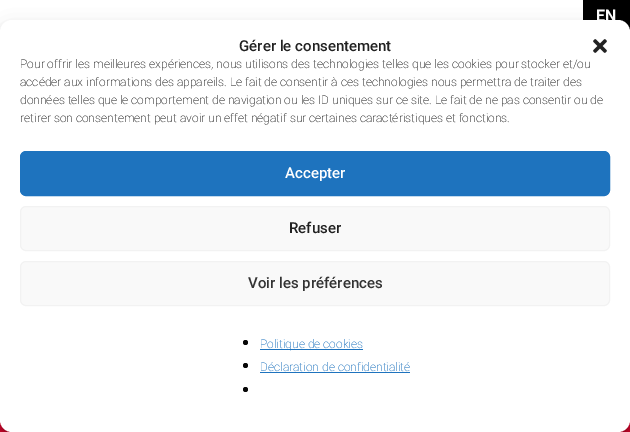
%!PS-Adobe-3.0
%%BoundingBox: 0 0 630 432
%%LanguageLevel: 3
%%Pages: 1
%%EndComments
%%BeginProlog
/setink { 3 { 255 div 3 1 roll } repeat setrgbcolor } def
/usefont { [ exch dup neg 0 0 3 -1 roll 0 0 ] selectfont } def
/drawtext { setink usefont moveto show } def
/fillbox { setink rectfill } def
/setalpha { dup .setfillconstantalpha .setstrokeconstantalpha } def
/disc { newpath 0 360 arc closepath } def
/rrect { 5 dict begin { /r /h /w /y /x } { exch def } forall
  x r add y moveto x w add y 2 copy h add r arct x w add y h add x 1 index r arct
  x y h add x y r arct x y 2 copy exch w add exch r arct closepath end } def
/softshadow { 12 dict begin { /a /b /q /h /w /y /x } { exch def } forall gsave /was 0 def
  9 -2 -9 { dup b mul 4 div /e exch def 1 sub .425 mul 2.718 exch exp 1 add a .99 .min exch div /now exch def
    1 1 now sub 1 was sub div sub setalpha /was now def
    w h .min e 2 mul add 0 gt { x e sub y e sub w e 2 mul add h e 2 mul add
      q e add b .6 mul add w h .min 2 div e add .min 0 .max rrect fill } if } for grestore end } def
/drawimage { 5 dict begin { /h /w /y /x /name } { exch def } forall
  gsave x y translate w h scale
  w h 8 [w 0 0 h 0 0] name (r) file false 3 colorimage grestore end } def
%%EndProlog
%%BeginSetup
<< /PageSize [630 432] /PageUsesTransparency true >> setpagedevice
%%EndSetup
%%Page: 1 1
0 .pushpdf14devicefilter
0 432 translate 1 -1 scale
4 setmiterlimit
0 0 630 432 255 255 255 fillbox
583 0 47 30 0 0 0 fillbox
(EN) 596 21 /Roboto-Bold 16 255 255 255 drawtext
0 420 630 12 225 4 45 fillbox
0 0 0 setink
0 26 630 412 12 3 0.23 softshadow
0 30 630 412 12 10 0.19 softshadow
255 255 255 setink
0 20 630 412 12 rrect fill
(Gérer le consentement) 239 51 /Roboto-Medium 15 34 34 34 drawtext
(assets/img1.rgb) 593 39 14 14 drawimage
(Pour offrir les meilleures expériences, nous utilisons des technologies telles que les cookies pour stocker et/ou) 20 68 /Roboto-ExtraLight 12 34 34 34 drawtext
(accéder aux informations des appareils. Le fait de consentir à ces technologies nous permettra de traiter des) 20 86 /Roboto-ExtraLight 12 34 34 34 drawtext
(données telles que le comportement de navigation ou les ID uniques sur ce site. Le fait de ne pas consentir ou de) 20 104 /Roboto-ExtraLight 12 34 34 34 drawtext
(retirer son consentement peut avoir un effet négatif sur certaines caractéristiques et fonctions.) 20 122 /Roboto-ExtraLight 12 34 34 34 drawtext
30 115 190 setink
20.5 151.5 589 44 5.5 rrect gsave fill grestore
stroke
(Accepter) 285 178 /Roboto-Medium 15 255 255 255 drawtext
249 249 249 setink
20.5 206.5 589 44 5.5 rrect gsave fill grestore
242 242 242 setink
stroke
(Refuser) 289 233 /Roboto-Medium 15 34 34 34 drawtext
249 249 249 setink
20.5 261.5 589 44 5.5 rrect gsave fill grestore
242 242 242 setink
stroke
(Voir les préférences) 248 288 /Roboto-Medium 15 51 51 51 drawtext
7 7 7 setink
245.5 342.5 2.5 disc fill
260 349 103 1 30 115 190 fillbox
(Politique de cookies) 260 348 /Roboto-ExtraLight 12 30 115 190 drawtext
7 7 7 setink
245.5 365.5 2.5 disc fill
(Déclaration de confidentialité) 260 371 /Roboto-ExtraLight 12 30 115 190 drawtext
260 372 150 1 30 115 190 fillbox
7 7 7 setink
245.5 389.5 2.5 disc fill
.poppdf14devicefilter showpage
%%EOF
